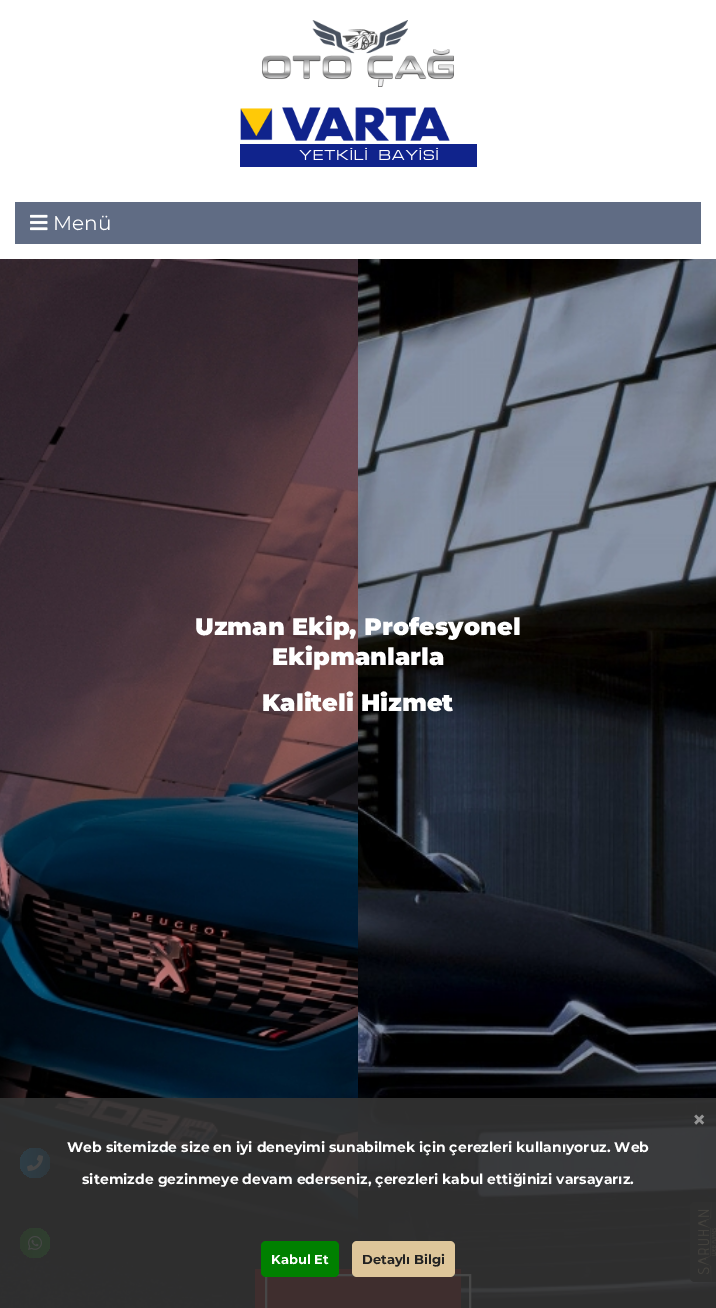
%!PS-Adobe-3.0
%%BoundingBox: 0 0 716 1308
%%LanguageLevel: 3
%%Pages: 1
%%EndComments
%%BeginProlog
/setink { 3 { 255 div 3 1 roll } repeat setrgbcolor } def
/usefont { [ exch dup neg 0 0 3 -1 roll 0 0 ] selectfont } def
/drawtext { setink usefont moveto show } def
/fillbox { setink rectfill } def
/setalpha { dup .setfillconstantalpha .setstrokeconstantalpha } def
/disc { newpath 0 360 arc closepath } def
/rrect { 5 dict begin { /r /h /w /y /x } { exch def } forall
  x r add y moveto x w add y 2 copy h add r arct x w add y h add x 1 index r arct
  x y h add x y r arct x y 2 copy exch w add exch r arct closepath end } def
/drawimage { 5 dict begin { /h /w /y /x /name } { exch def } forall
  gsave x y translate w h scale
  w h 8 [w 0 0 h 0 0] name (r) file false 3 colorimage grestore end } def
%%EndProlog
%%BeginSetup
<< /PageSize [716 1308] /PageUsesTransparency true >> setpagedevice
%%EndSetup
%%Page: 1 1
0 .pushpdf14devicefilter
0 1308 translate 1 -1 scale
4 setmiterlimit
0 0 716 1308 255 255 255 fillbox
(assets/img1.rgb) 262 20 192 67 drawimage
(assets/img2.rgb) 240 107 237 60 drawimage
15 202 686 42 96 108 132 fillbox
(assets/img3.rgb) 30 214 18 17 drawimage
(Menü) 53 230 /Montserrat-Regular 20 255 255 255 drawtext
(assets/img4.rgb) 0 259 358 1049 drawimage
(assets/img5.rgb) 358 259 358 1049 drawimage
(Uzman Ekip, Profesyonel) 195 635 /Montserrat-Black 24 255 255 255 drawtext
(Ekipmanlarla) 272 665 /Montserrat-Black 24 255 255 255 drawtext
(Kaliteli Hizmet) 262 711 /Montserrat-Black 24 255 255 255 drawtext
255 1269 206 39 177 0 0 fillbox
255 255 255 setink
2 setlinewidth
266 1275 204 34 rectstroke
gsave 35 1163 15 disc clip newpath
<< /ShadingType 2 /ColorSpace /DeviceRGB /Coords [20 1163 50 1163] /Extend [true true] /Function << /FunctionType 2 /Domain [0 1] /C0 [0 0.639 1] /C1 [0 0.38 0.6] /N 1 >> >> shfill grestore
(assets/img6.rgb) 27 1155 16 16 drawimage
gsave 35 1243 15 disc clip newpath
<< /ShadingType 2 /ColorSpace /DeviceRGB /Coords [20 1243 50 1243] /Extend [true true] /Function << /FunctionType 2 /Domain [0 1] /C0 [0.024 0.518 0.016] /C1 [0.043 0.663 0.035] /N 1 >> >> shfill grestore
(assets/img7.rgb) 28 1236 14 14 drawimage
17 17 17 setink
690 1277 moveto 690 1207 lineto 690 1204 692 1202 695 1202 curveto 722 1202 lineto 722 1282 lineto 695 1282 lineto 692 1282 690 1280 690 1277 curveto closepath fill
(assets/img8.rgb) 698 1202 18 80 drawimage
0.9 setalpha
0 1098 716 210 51 51 51 fillbox
1 setalpha
(×) 692 1128 /Montserrat-Bold 24 148 148 148 drawtext
(Web sitemizde size en iyi deneyimi sunabilmek için çerezleri kullanıyoruz. Web) 67 1152 /Montserrat-Bold 14 255 255 255 drawtext
(sitemizde gezinmeye devam ederseniz, çerezleri kabul ettiğinizi varsayarız.) 82 1184 /Montserrat-Bold 14 255 255 255 drawtext
0 128 0 setink
261 1241 78 36 5 rrect fill
(Kabul Et) 271 1264 /Montserrat-Bold 13 255 255 255 drawtext
222 198 154 setink
352 1241 103 36 5 rrect fill
(Detaylı Bilgi) 362 1264 /Montserrat-Bold 13 34 34 34 drawtext
.poppdf14devicefilter showpage
%%EOF
